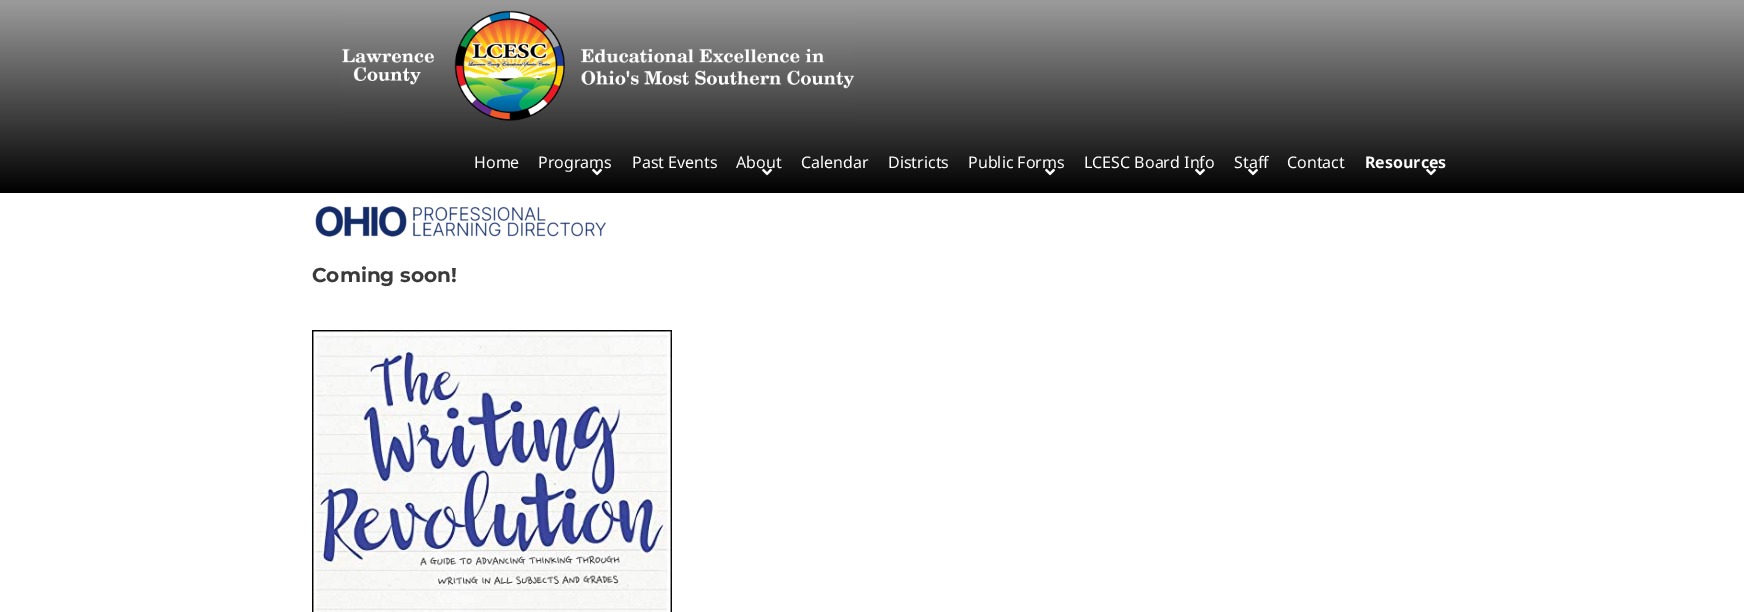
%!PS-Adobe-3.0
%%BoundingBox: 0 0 1744 612
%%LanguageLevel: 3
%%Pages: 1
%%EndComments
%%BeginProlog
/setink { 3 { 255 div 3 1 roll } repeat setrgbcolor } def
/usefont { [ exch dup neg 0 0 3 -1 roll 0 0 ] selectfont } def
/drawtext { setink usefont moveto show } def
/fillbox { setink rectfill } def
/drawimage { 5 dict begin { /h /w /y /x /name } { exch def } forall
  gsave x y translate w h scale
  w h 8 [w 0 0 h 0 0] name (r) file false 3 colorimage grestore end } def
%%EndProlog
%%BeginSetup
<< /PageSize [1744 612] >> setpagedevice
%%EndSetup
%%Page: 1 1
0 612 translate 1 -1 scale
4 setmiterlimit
0 0 1744 612 255 255 255 fillbox
gsave 0 0 moveto 1744 0 lineto 1744 193 lineto 0 193 lineto closepath clip newpath
<< /ShadingType 2 /ColorSpace /DeviceRGB /Coords [872 0 872 193] /Extend [true true] /Function << /FunctionType 2 /Domain [0 1] /C0 [0.612 0.612 0.612] /C1 [0 0 0] /N 1 >> >> shfill grestore
(assets/img1.rgb) 342 10 513 111 drawimage
(Home) 474 168 /NotoSans-Regular 16 255 255 255 drawtext
(Programs) 538 168 /NotoSans-Regular 16 255 255 255 drawtext
(assets/img2.rgb) 592 168 10 8 drawimage
(Past Events) 632 168 /NotoSans-Regular 16 255 255 255 drawtext
(About) 736 168 /NotoSans-Regular 16 255 255 255 drawtext
(assets/img3.rgb) 762 168 10 8 drawimage
(Calendar) 801 168 /NotoSans-Regular 16 255 255 255 drawtext
(Districts) 888 168 /NotoSans-Regular 16 255 255 255 drawtext
(Public Forms) 968 168 /NotoSans-Regular 16 255 255 255 drawtext
(assets/img2.rgb) 1045 168 10 8 drawimage
(LCESC Board Info) 1084 168 /NotoSans-Regular 16 255 255 255 drawtext
(assets/img2.rgb) 1195 168 10 8 drawimage
(Staff) 1234 168 /NotoSans-Regular 16 255 255 255 drawtext
(assets/img4.rgb) 1248 168 10 8 drawimage
(Contact) 1287 168 /NotoSans-Regular 16 255 255 255 drawtext
(Resources) 1365 168 /NotoSans-Bold 16 255 255 255 drawtext
(assets/img5.rgb) 1426 168 10 8 drawimage
(assets/img6.rgb) 315 206 291 31 drawimage
(Coming soon!) 312 282 /Montserrat-Thin 20 58 58 58 drawtext
(assets/img7.rgb) 312 330 360 282 drawimage
showpage
%%EOF
